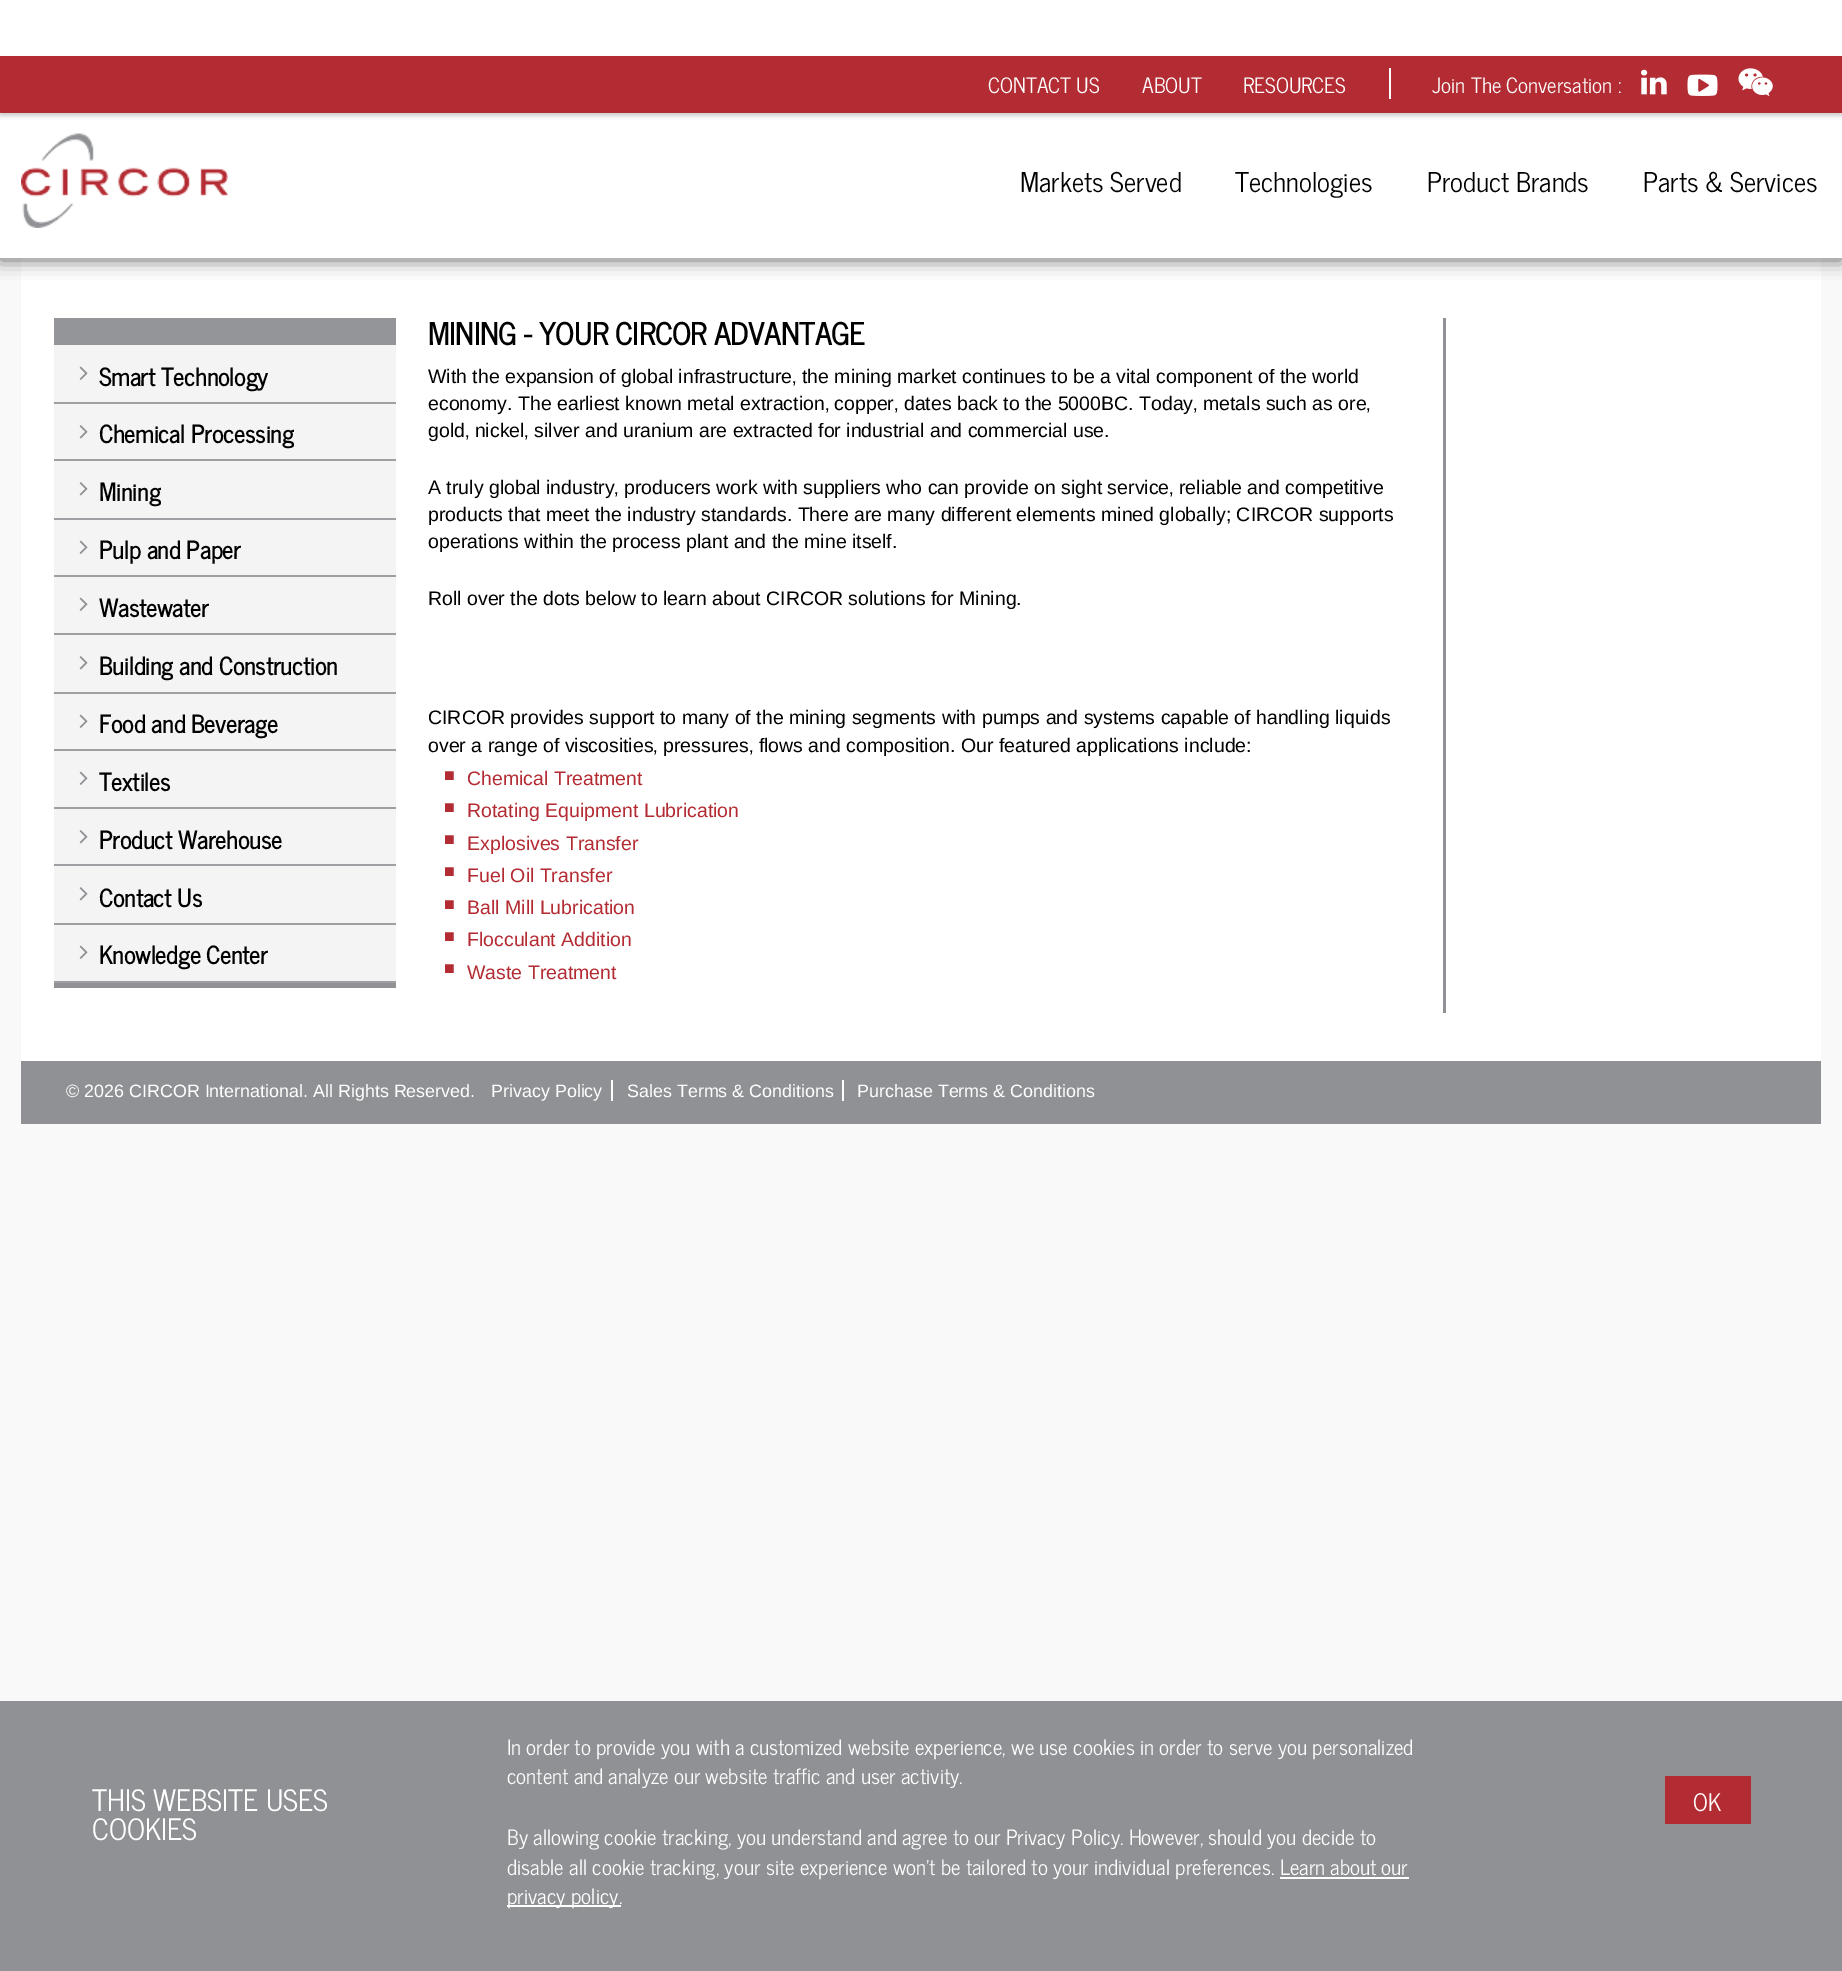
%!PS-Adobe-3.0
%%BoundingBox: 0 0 1842 1971
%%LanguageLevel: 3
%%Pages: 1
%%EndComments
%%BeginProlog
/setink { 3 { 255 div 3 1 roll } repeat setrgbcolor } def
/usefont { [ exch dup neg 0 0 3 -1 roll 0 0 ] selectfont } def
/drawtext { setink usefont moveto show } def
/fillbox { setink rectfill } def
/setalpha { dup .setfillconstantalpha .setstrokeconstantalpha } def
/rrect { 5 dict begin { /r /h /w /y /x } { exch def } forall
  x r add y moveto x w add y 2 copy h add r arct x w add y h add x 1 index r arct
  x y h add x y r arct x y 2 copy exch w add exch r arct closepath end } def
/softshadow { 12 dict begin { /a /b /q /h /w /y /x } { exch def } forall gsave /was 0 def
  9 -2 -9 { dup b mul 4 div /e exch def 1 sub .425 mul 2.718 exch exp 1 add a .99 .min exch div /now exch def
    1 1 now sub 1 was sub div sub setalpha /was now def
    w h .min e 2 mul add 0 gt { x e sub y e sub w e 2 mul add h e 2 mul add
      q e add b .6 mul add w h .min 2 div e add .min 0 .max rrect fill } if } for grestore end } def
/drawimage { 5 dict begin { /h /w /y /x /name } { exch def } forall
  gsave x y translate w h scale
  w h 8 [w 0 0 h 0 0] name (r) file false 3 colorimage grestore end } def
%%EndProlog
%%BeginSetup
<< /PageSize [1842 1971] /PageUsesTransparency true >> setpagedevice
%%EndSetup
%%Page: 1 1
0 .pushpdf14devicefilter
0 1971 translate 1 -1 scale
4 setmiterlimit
0 0 1842 1971 249 249 250 fillbox
21 258 1800 803 255 255 255 fillbox
102 102 102 setink
0 2 1842 258 0 9 1 softshadow
0 0 1842 258 255 255 255 fillbox
204 204 204 setink
0 59 1842 57 0 2 1 softshadow
0 56 1842 57 180 44 51 fillbox
(CONTACT US) 988 93 /NewsCycle-Regular 21 255 255 255 drawtext
(ABOUT) 1142 93 /NewsCycle-Regular 21 255 255 255 drawtext
(RESOURCES) 1243 93 /NewsCycle-Regular 21 255 255 255 drawtext
1389 68 2 31 255 255 255 fillbox
(Join The Conversation :) 1432 93 /NewsCycle-Regular 21 255 255 255 drawtext
(assets/img1.rgb) 1641 69 26 26 drawimage
(assets/img2.rgb) 1687 74 31 22 drawimage
(assets/img3.rgb) 1738 68 35 29 drawimage
(assets/img4.rgb) 21 133 207 95 drawimage
(Markets Served) 1020 192 /NewsCycle-Regular 27 0 0 0 drawtext
(Technologies) 1235 192 /NewsCycle-Regular 27 0 0 0 drawtext
(Product Brands) 1427 192 /NewsCycle-Regular 27 0 0 0 drawtext
(Parts & Services) 1643 192 /NewsCycle-Regular 27 0 0 0 drawtext
54 345 342 636 244 244 244 fillbox
54 983 342 5 143 145 148 fillbox
54 318 342 27 147 149 152 fillbox
54 402 342 2 157 159 162 fillbox
(assets/img5.rgb) 79 366 9 14 drawimage
(Smart Technology) 99 386 /NewsCycle-Bold 24 0 0 0 drawtext
54 459 342 2 157 159 162 fillbox
(assets/img6.rgb) 79 425 9 14 drawimage
(Chemical Processing) 99 443 /NewsCycle-Bold 24 0 0 0 drawtext
54 518 342 2 157 159 162 fillbox
(assets/img6.rgb) 79 482 9 14 drawimage
(Mining) 99 501 /NewsCycle-Bold 24 0 0 0 drawtext
54 575 342 2 157 159 162 fillbox
(assets/img5.rgb) 79 540 9 14 drawimage
(Pulp and Paper) 99 559 /NewsCycle-Bold 24 0 0 0 drawtext
54 633 342 2 157 159 162 fillbox
(assets/img5.rgb) 79 597 9 14 drawimage
(Wastewater) 99 617 /NewsCycle-Bold 24 0 0 0 drawtext
54 692 342 2 157 159 162 fillbox
(assets/img6.rgb) 79 656 9 14 drawimage
(Building and Construction) 99 675 /NewsCycle-Bold 24 0 0 0 drawtext
54 749 342 2 157 159 162 fillbox
(assets/img5.rgb) 79 714 9 14 drawimage
(Food and Beverage) 99 733 /NewsCycle-Bold 24 0 0 0 drawtext
54 807 342 2 157 159 162 fillbox
(assets/img5.rgb) 79 771 9 14 drawimage
(Textiles) 99 791 /NewsCycle-Bold 24 0 0 0 drawtext
54 864 342 2 157 159 162 fillbox
(assets/img6.rgb) 79 830 9 14 drawimage
(Product Warehouse) 99 849 /NewsCycle-Bold 24 0 0 0 drawtext
54 923 342 2 157 159 162 fillbox
(assets/img6.rgb) 79 887 9 14 drawimage
(Contact Us) 99 907 /NewsCycle-Bold 24 0 0 0 drawtext
54 981 342 2 157 159 162 fillbox
(assets/img5.rgb) 79 945 9 14 drawimage
(Knowledge Center) 99 964 /NewsCycle-Bold 24 0 0 0 drawtext
1443 318 3 695 143 145 148 fillbox
(MINING - YOUR CIRCOR ADVANTAGE) 428 345 /NewsCycle-Bold 30 0 0 0 drawtext
(With the expansion of global infrastructure‚ the mining market continues to be a vital component of the world) 428 383 /LiberationSans-Regular 19.5 0 0 0 drawtext
(economy. The earliest known metal extraction‚ copper‚ dates back to the 5000BC. Today‚ metals such as ore‚) 428 410 /LiberationSans-Regular 19.5 0 0 0 drawtext
(gold‚ nickel‚ silver and uranium are extracted for industrial and commercial use.) 428 437 /LiberationSans-Regular 19.5 0 0 0 drawtext
(A truly global industry‚ producers work with suppliers who can provide on sight service‚ reliable and competitive) 428 494 /LiberationSans-Regular 19.5 0 0 0 drawtext
(products that meet the industry standards. There are many different elements mined globally; CIRCOR supports) 428 521 /LiberationSans-Regular 19.5 0 0 0 drawtext
(operations within the process plant and the mine itself.) 428 548 /LiberationSans-Regular 19.5 0 0 0 drawtext
(Roll over the dots below to learn about CIRCOR solutions for Mining.) 428 605 /LiberationSans-Regular 19.5 0 0 0 drawtext
(CIRCOR provides support to many of the mining segments with pumps and systems capable of handling liquids) 428 724 /LiberationSans-Regular 19.5 0 0 0 drawtext
(over a range of viscosities‚ pressures‚ flows and composition. Our featured applications include:) 428 752 /LiberationSans-Regular 19.5 0 0 0 drawtext
(■) 444 781 /LiberationSans-Regular 18 180 44 51 drawtext
(Chemical Treatment) 467 785 /LiberationSans-Regular 19.5 180 44 51 drawtext
(■) 444 813 /LiberationSans-Regular 18 180 44 51 drawtext
(Rotating Equipment Lubrication) 467 817 /LiberationSans-Regular 19.5 180 44 51 drawtext
(■) 444 845 /LiberationSans-Regular 18 180 44 51 drawtext
(Explosives Transfer) 467 850 /LiberationSans-Regular 19.5 180 44 51 drawtext
(■) 444 877 /LiberationSans-Regular 18 180 44 51 drawtext
(Fuel Oil Transfer) 467 882 /LiberationSans-Regular 19.5 180 44 51 drawtext
(■) 444 910 /LiberationSans-Regular 18 180 44 51 drawtext
(Ball Mill Lubrication) 467 914 /LiberationSans-Regular 19.5 180 44 51 drawtext
(■) 444 942 /LiberationSans-Regular 18 180 44 51 drawtext
(Flocculant Addition) 467 946 /LiberationSans-Regular 19.5 180 44 51 drawtext
(■) 444 974 /LiberationSans-Regular 18 180 44 51 drawtext
(Waste Treatment) 467 979 /LiberationSans-Regular 19.5 180 44 51 drawtext
21 1061 1800 63 143 145 148 fillbox
(© 2026 CIRCOR International. All Rights Reserved.) 66 1097 /LiberationSans-Regular 17.9 255 255 255 drawtext
(Privacy Policy) 491 1097 /LiberationSans-Regular 17.9 255 255 255 drawtext
611 1080 2 21 255 255 255 fillbox
(Sales Terms & Conditions) 627 1097 /LiberationSans-Regular 17.9 255 255 255 drawtext
842 1080 2 21 255 255 255 fillbox
(Purchase Terms & Conditions) 857 1097 /LiberationSans-Regular 17.9 255 255 255 drawtext
0 1701 1842 270 144 145 149 fillbox
(THIS WEBSITE USES) 92 1811 /NewsCycle-Regular 29.25 255 255 255 drawtext
(COOKIES) 92 1840 /NewsCycle-Regular 29.25 255 255 255 drawtext
(In order to provide you with a customized website experience, we use cookies in order to serve you personalized) 507 1755 /NewsCycle-Regular 21 255 255 255 drawtext
(content and analyze our website traffic and user activity.) 507 1784 /NewsCycle-Regular 21 255 255 255 drawtext
(By allowing cookie tracking, you understand and agree to our Privacy Policy. However, should you decide to) 507 1845 /NewsCycle-Regular 21 255 255 255 drawtext
(disable all cookie tracking, your site experience won't be tailored to your individual preferences. Learn about our) 507 1875 /NewsCycle-Regular 21 255 255 255 drawtext
507 1905 114 2 255 255 255 fillbox
(privacy policy.) 507 1904 /NewsCycle-Regular 21 255 255 255 drawtext
1280 1877 129 2 255 255 255 fillbox
1665 1776 86 48 180 44 51 fillbox
(OK) 1693 1811 /NewsCycle-Regular 24 255 255 255 drawtext
.poppdf14devicefilter showpage
%%EOF
